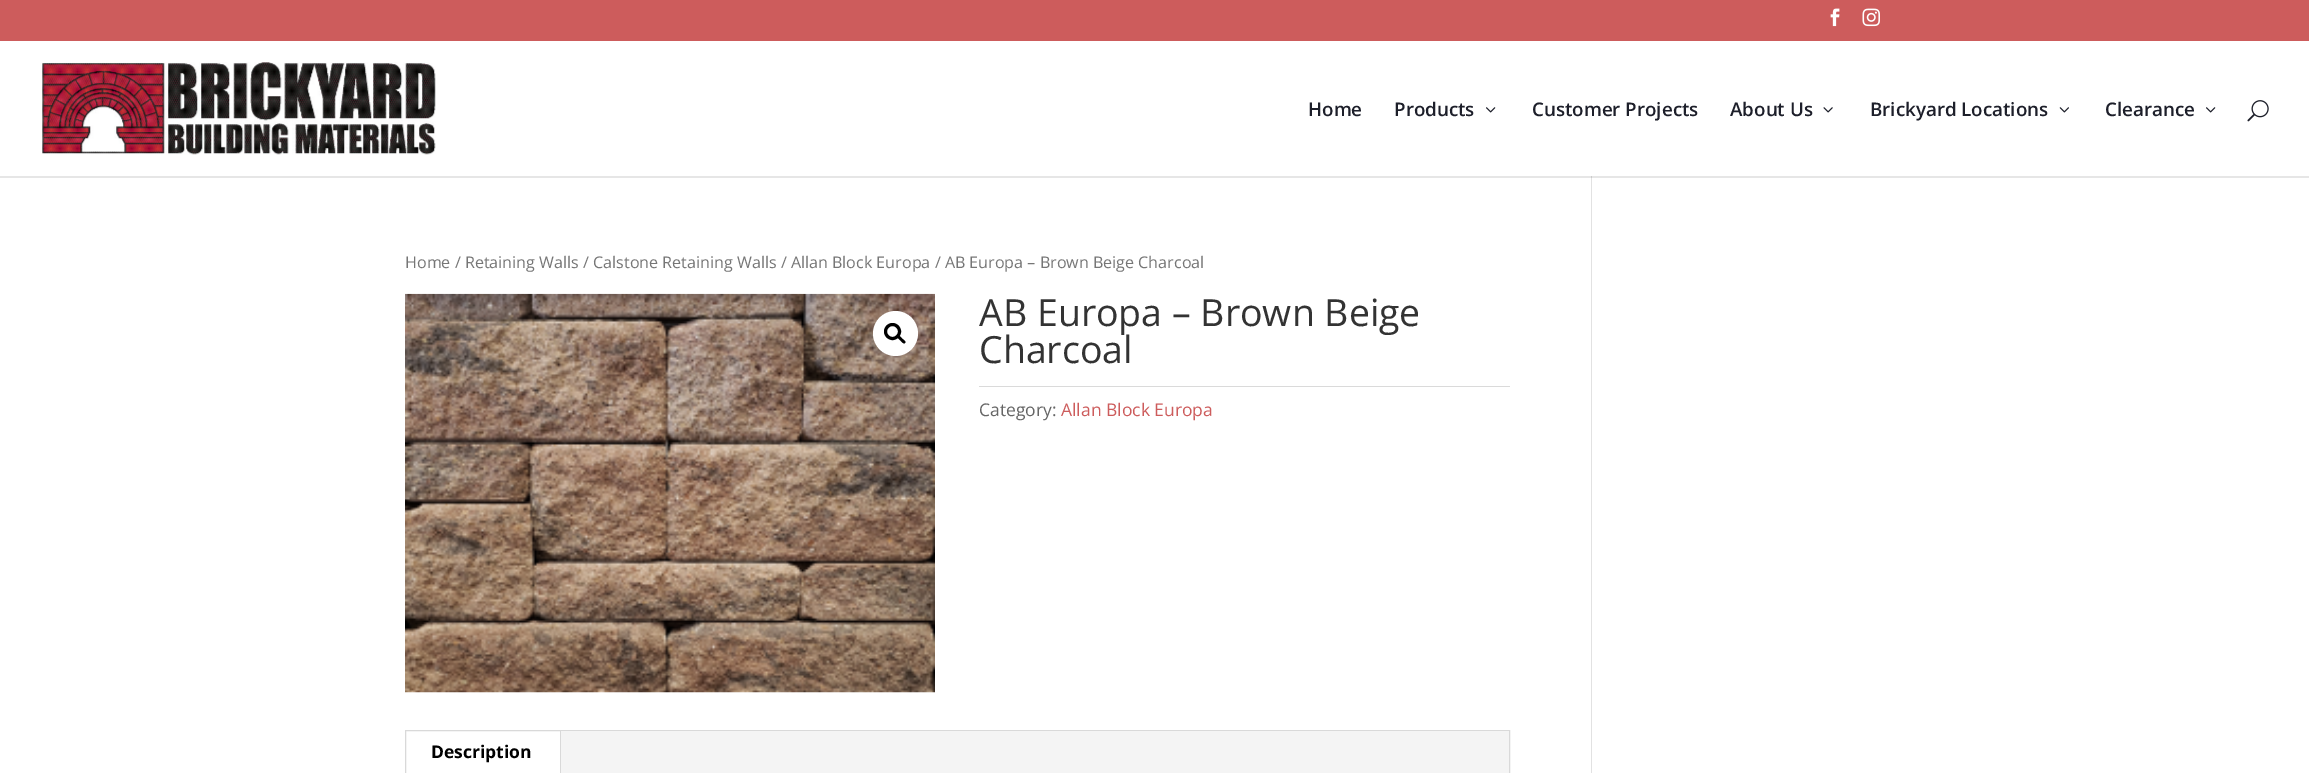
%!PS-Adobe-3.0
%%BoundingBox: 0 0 2309 773
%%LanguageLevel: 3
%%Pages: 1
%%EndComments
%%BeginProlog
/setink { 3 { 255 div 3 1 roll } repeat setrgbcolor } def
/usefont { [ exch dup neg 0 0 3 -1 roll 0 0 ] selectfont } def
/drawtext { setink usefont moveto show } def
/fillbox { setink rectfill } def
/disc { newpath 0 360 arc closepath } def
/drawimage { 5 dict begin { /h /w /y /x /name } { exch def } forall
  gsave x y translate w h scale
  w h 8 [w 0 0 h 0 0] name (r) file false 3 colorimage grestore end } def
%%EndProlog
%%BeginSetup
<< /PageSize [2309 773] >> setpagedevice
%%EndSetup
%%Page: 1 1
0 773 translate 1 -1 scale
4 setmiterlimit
0 0 2309 773 255 255 255 fillbox
0 176 2309 2 230 230 230 fillbox
0 0 2309 41 205 92 92 fillbox
(assets/img1.rgb) 1830 8 10 19 drawimage
(assets/img2.rgb) 1862 8 18 19 drawimage
1591 175 1 598 226 226 226 fillbox
1591 175 1 1 255 255 255 fillbox
(assets/img3.rgb) 42 62 394 93 drawimage
(Home) 1308 116 /OpenSans-SemiBold 18.75 29 31 42 drawtext
(Products) 1394 116 /OpenSans-SemiBold 18.75 29 31 42 drawtext
(assets/img4.rgb) 1486 107 10 6 drawimage
(Customer Projects) 1532 116 /OpenSans-SemiBold 18.75 29 31 42 drawtext
(About Us) 1730 116 /OpenSans-SemiBold 18.75 29 31 42 drawtext
(assets/img5.rgb) 1823 107 10 6 drawimage
(Brickyard Locations) 1870 116 /OpenSans-SemiBold 18.75 29 31 42 drawtext
(assets/img6.rgb) 2059 107 10 6 drawimage
(Clearance) 2105 116 /OpenSans-SemiBold 18.75 29 31 42 drawtext
(assets/img4.rgb) 2206 107 10 6 drawimage
(assets/img7.rgb) 2247 100 22 22 drawimage
(Home / Retaining Walls / Calstone Retaining Walls / Allan Block Europa / AB Europa – Brown Beige Charcoal) 405 268 /OpenSans-Regular 16.1 118 118 118 drawtext
(assets/img8.rgb) 405 293 530 400 drawimage
255 255 255 setink
895.5 333.5 22.5 disc fill
0 0 0 setink
3 setlinewidth
892.5 331.5 7 disc stroke
898 336 moveto 899 334.5 901.5 338 902 338.5 curveto 903 339.5 906.5 341.5 905 343 curveto 903.5 344.5 901 341 900.5 340.5 curveto 899.5 339.5 896.5 337.5 898 336 curveto closepath fill
(AB Europa – Brown Beige) 979 326 /OpenSans-Regular 37.5 51 51 51 drawtext
(Charcoal) 979 363 /OpenSans-Regular 37.5 51 51 51 drawtext
979 386 531 1 218 218 218 fillbox
(Category:) 979 416 /OpenSans-Regular 17.5 102 102 102 drawtext
(Allan Block Europa) 1061 416 /OpenSans-Regular 17.5 205 92 92 drawtext
217 217 217 setink
1 setlinewidth
405.5 730.5 1104 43 rectstroke
561 731 948 42 244 244 244 fillbox
560 731 1 42 217 217 217 fillbox
(Description) 431 758 /OpenSans-Bold 17.5 0 0 0 drawtext
1591 176 1 2 203 203 203 fillbox
showpage
%%EOF
